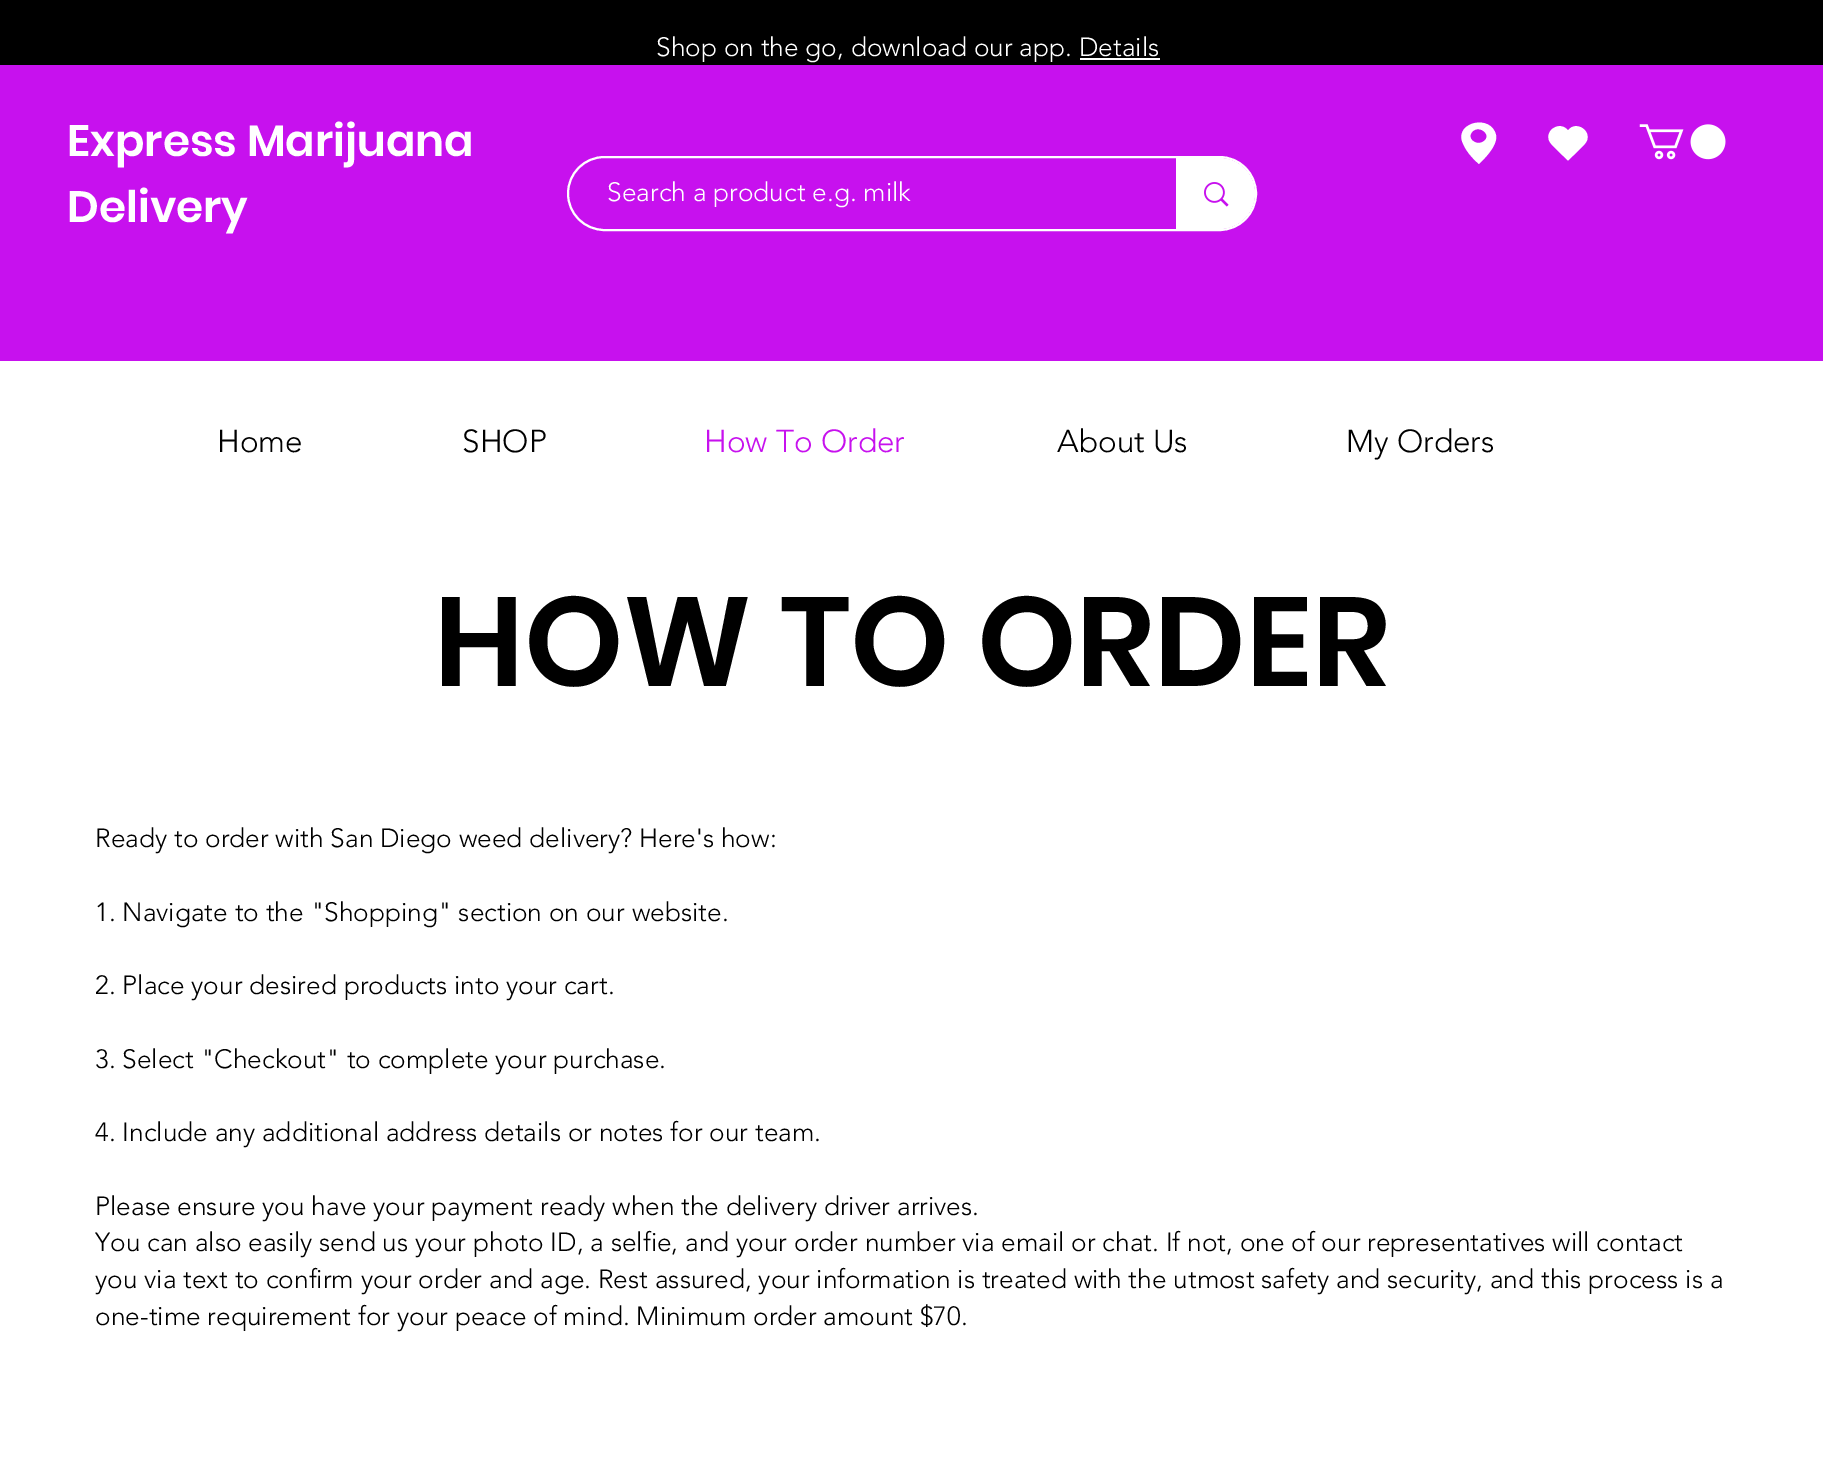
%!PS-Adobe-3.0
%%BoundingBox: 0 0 1823 1467
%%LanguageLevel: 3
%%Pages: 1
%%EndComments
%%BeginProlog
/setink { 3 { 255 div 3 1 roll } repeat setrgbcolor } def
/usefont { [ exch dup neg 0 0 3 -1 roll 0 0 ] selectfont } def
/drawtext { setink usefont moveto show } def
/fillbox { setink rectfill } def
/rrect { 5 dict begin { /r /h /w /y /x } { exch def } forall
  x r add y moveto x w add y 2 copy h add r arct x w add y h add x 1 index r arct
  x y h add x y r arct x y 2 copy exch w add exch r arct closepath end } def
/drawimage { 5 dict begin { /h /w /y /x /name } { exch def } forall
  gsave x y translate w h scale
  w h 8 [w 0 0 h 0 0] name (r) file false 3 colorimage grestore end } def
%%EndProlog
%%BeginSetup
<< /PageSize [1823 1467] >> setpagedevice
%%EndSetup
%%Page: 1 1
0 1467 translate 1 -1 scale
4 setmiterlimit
0 0 1823 1467 255 255 255 fillbox
0 0 1823 65 0 0 0 fillbox
(Shop on the go, download our app. Details) 656 56 /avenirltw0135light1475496-Light 26.25 255 255 255 drawtext
1080 58 80 2 255 255 255 fillbox
0 65 1823 296 199 17 238 fillbox
(Express Marijuana) 67 156 /Poppins-SemiBold 43.75 255 255 255 drawtext
(Delivery) 67 222 /Poppins-SemiBold 43.75 255 255 255 drawtext
1496 135 moveto 1491 114 1456 122 1462 141 curveto 1465 150 1472 158 1479 164 curveto 1485 158 1498 145 1496 135 curveto closepath 1484 141 moveto 1477 147 1465 138 1473 131 curveto 1480 125 1492 135 1484 141 curveto closepath fill
1568 160.5 moveto 1578.5 150.5 lineto 1581 147.5 1584.5 145 1586.5 141.5 curveto 1592 130.5 1575.5 120 1568 130.5 curveto 1560 120 1544 130.5 1549.5 141.5 curveto 1551.5 145 1555 147.5 1557.5 150.5 curveto closepath fill
(assets/img1.rgb) 1639 124 87 36 drawimage
2 setlinewidth
568 157 688 73 36.5 rrect stroke
(Search a product e.g. milk) 607 201 /avenirltw0135light1475496-Light 26.25 255 255 255 drawtext
1176 158 moveto 1219.5 158 lineto 1239 158 1255 174 1255 193.5 curveto 1255 213 1239 229 1219.5 229 curveto 1176 229 lineto closepath fill
(assets/img2.rgb) 1204 182 25 25 drawimage
(Home) 217 452 /avenirltw0135light1475496-Light 31.5 0 0 0 drawtext
(SHOP) 462 452 /avenirltw0135light1475496-Light 31.5 0 0 0 drawtext
(How To Order) 704 452 /avenirltw0135light1475496-Light 31.5 199 17 238 drawtext
(About Us) 1057 452 /avenirltw0135light1475496-Light 31.5 0 0 0 drawtext
(My Orders) 1346 452 /avenirltw0135light1475496-Light 31.5 0 0 0 drawtext
(HOW TO ORDER) 434 686 /Poppins-SemiBold 126 0 0 0 drawtext
(Ready to order with San Diego weed delivery? Here's how:) 95 847 /avenirltw0135light1475496-Light 26.25 0 0 0 drawtext
(1. Navigate to the "Shopping" section on our website.) 95 921 /avenirltw0135light1475496-Light 26.25 0 0 0 drawtext
(2. Place your desired products into your cart.) 95 994 /avenirltw0135light1475496-Light 26.25 0 0 0 drawtext
(3. Select "Checkout" to complete your purchase.) 95 1068 /avenirltw0135light1475496-Light 26.25 0 0 0 drawtext
(4. Include any additional address details or notes for our team.) 95 1141 /avenirltw0135light1475496-Light 26.25 0 0 0 drawtext
(Please ensure you have your payment ready when the delivery driver arrives.) 95 1215 /avenirltw0135light1475496-Light 26.25 0 0 0 drawtext
(You can also easily send us your photo ID, a selfie, and your order number via email or chat. If not, one of our representatives will contact) 95 1251 /avenirltw0135light1475496-Light 26.25 0 0 0 drawtext
(you via text to confirm your order and age. Rest assured, your information is treated with the utmost safety and security, and this process is a) 95 1288 /avenirltw0135light1475496-Light 26.25 0 0 0 drawtext
(one-time requirement for your peace of mind. Minimum order amount $70.) 95 1325 /avenirltw0135light1475496-Light 26.25 0 0 0 drawtext
showpage
%%EOF
